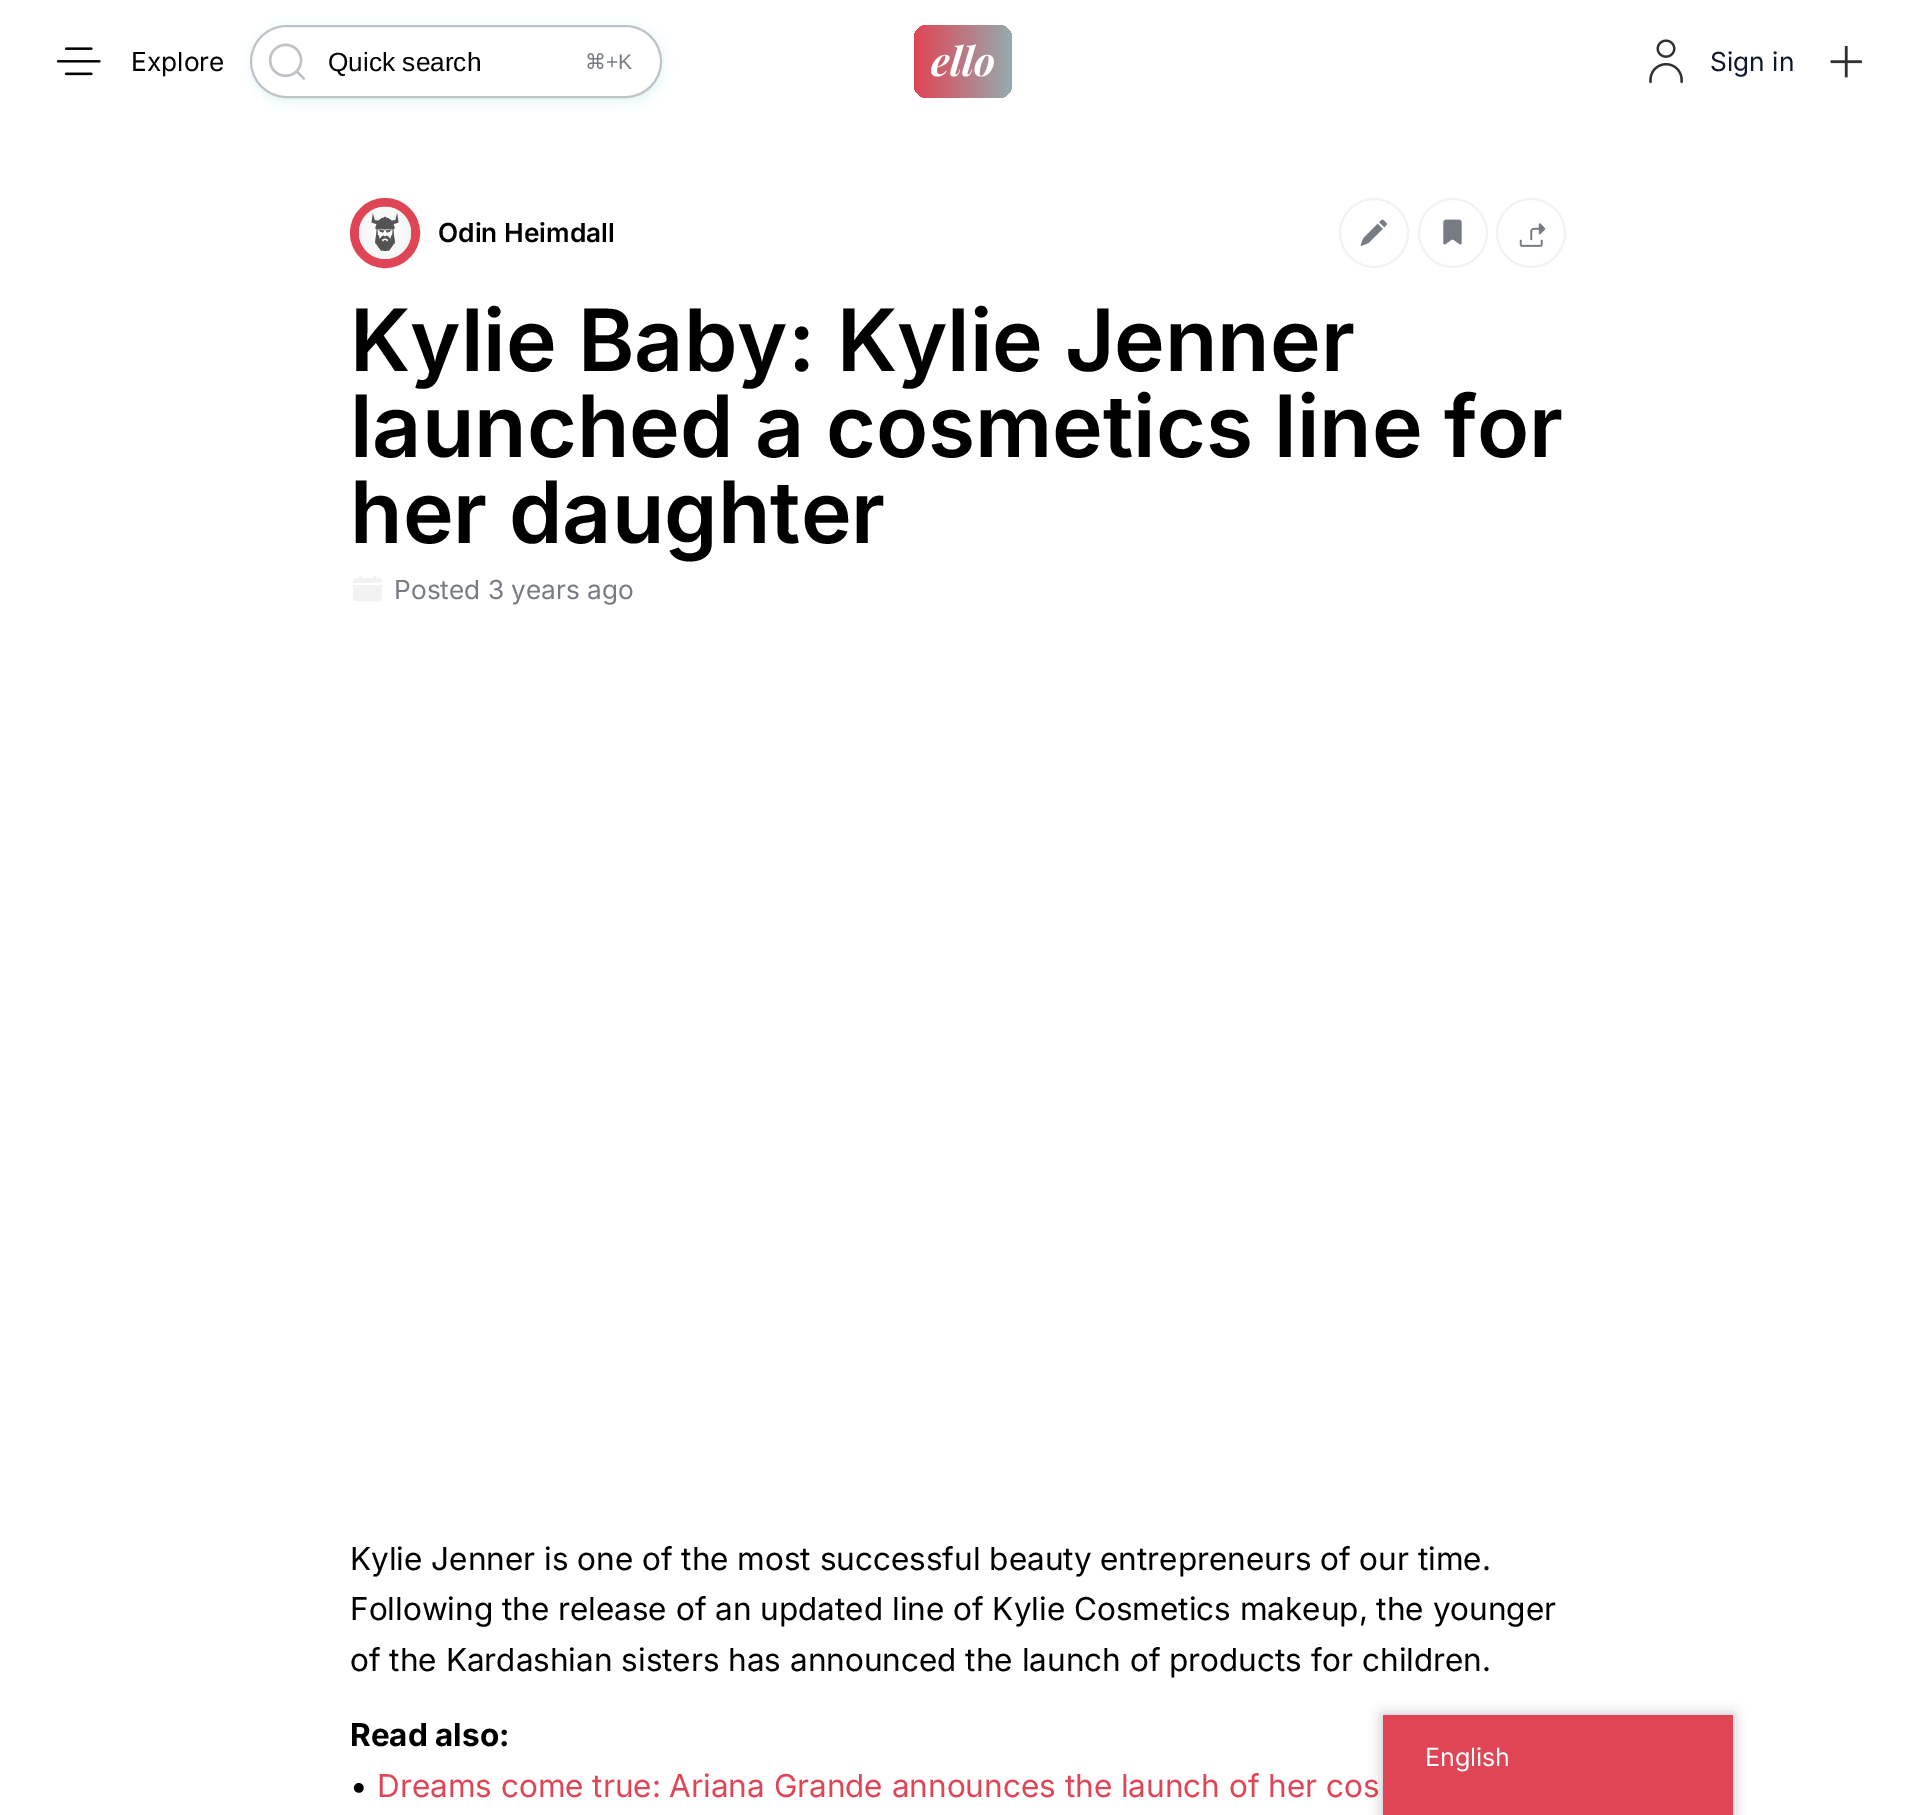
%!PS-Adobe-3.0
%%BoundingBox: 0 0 1925 1815
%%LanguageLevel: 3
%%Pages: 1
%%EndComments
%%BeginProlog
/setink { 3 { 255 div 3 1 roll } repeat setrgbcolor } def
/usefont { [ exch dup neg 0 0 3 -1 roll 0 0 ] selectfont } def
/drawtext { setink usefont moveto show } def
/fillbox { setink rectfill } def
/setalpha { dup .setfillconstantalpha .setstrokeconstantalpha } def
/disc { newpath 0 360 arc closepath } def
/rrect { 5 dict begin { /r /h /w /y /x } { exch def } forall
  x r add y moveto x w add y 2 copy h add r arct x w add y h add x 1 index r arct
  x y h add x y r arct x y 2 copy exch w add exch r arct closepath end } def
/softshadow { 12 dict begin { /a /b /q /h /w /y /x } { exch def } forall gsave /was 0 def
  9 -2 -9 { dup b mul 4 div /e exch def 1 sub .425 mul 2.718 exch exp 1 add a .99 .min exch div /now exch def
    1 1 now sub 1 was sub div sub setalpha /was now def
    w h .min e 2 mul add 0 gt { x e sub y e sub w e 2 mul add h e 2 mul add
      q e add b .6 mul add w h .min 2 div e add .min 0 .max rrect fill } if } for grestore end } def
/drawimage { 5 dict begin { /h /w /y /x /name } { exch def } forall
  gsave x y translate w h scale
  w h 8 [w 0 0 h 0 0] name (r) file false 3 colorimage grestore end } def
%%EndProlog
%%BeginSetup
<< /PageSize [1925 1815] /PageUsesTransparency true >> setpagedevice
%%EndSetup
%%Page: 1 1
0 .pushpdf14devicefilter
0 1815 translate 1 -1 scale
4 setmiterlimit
0 0 1925 1815 255 255 255 fillbox
(assets/img1.rgb) 56 47 45 29 drawimage
(Explore) 131 71 /Inter-Regular 26.25 0 0 0 drawtext
126 204 204 setink
252 28 411 74 37 6 0.24 softshadow
255 255 255 setink
251 26 410 71 35.5 rrect gsave fill grestore
191 195 200 setink
2 setlinewidth
stroke
(assets/img2.rgb) 268 43 38 37 drawimage
(Quick search) 328 71 /LiberationSans-Regular 26.25 0 0 0 drawtext
(⌘) 585 69 /DejaVuSans-Regular 21 119 123 131 drawtext
(+K) 606 69 /LiberationSans-Regular 21 119 123 131 drawtext
gsave 914 25 98 73 14 rrect clip newpath
<< /ShadingType 2 /ColorSpace /DeviceRGB /Coords [914 171 1306 172] /Extend [true true] /Function << /FunctionType 3 /Domain [0 1] /Functions [<< /FunctionType 2 /Domain [0 1] /C0 [0.878 0.271 0.333] /C1 [0.494 0.8 0.8] /N 1 >> << /FunctionType 2 /Domain [0 1] /C0 [0.494 0.8 0.8] /C1 [0.878 0.271 0.333] /N 1 >> << /FunctionType 2 /Domain [0 1] /C0 [0.878 0.271 0.333] /C1 [0.878 0.271 0.333] /N 1 >>] /Bounds [0.33 0.67] /Encode [0 1 0 1 0 1] >> >> shfill grestore
(ello) 931 76 /PlayfairDisplay-BoldItalic 40 255 255 255 drawtext
(assets/img3.rgb) 1649 39 34 45 drawimage
(Sign in) 1710 71 /Inter-Regular 26.25 12 22 44 drawtext
(assets/img4.rgb) 1830 46 32 32 drawimage
224 69 85 setink
9 setlinewidth
385 233 30.5 disc stroke
(assets/img5.rgb) 358 206 54 53 drawimage
(Odin Heimdall) 438 242 /Inter-SemiBold 26.25 0 0 0 drawtext
242 242 242 setink
2 setlinewidth
1374 233 34 disc stroke
(assets/img6.rgb) 1360 219 27 27 drawimage
1453 233 34 disc stroke
(assets/img7.rgb) 1443 219 19 26 drawimage
1531 233 34 disc stroke
(assets/img8.rgb) 1519 223 27 24 drawimage
(Kylie Baby: Kylie Jenner) 350 371 /Inter-SemiBold 85.75 0 0 0 drawtext
(launched a cosmetics line for) 350 457 /Inter-SemiBold 85.75 0 0 0 drawtext
(her daughter) 350 543 /Inter-SemiBold 85.75 0 0 0 drawtext
(assets/img9.rgb) 353 575 29 27 drawimage
(Posted 3 years ago) 394 599 /Inter-Regular 26.25 119 123 131 drawtext
(Kylie Jenner is one of the most successful beauty entrepreneurs of our time.) 350 1570 /Inter-Regular 31.5 0 0 0 drawtext
(Following the release of an updated line of Kylie Cosmetics makeup, the younger) 350 1620 /Inter-Regular 31.5 0 0 0 drawtext
(of the Kardashian sisters has announced the launch of products for children.) 350 1671 /Inter-Regular 31.5 0 0 0 drawtext
(Read also:) 350 1746 /Inter-Bold 31.5 0 0 0 drawtext
(•) 350 1797 /Inter-Regular 31.5 0 0 0 drawtext
(Dreams come true: Ariana Grande announces the launch of her cos) 377 1797 /Inter-Regular 31.5 224 69 85 drawtext
0 0 0 setink
1383 1715 350 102 0 7 0.25 softshadow
1383 1715 350 100 224 69 85 fillbox
(English) 1425 1766 /Inter-Regular 25 255 255 255 drawtext
.poppdf14devicefilter showpage
%%EOF
